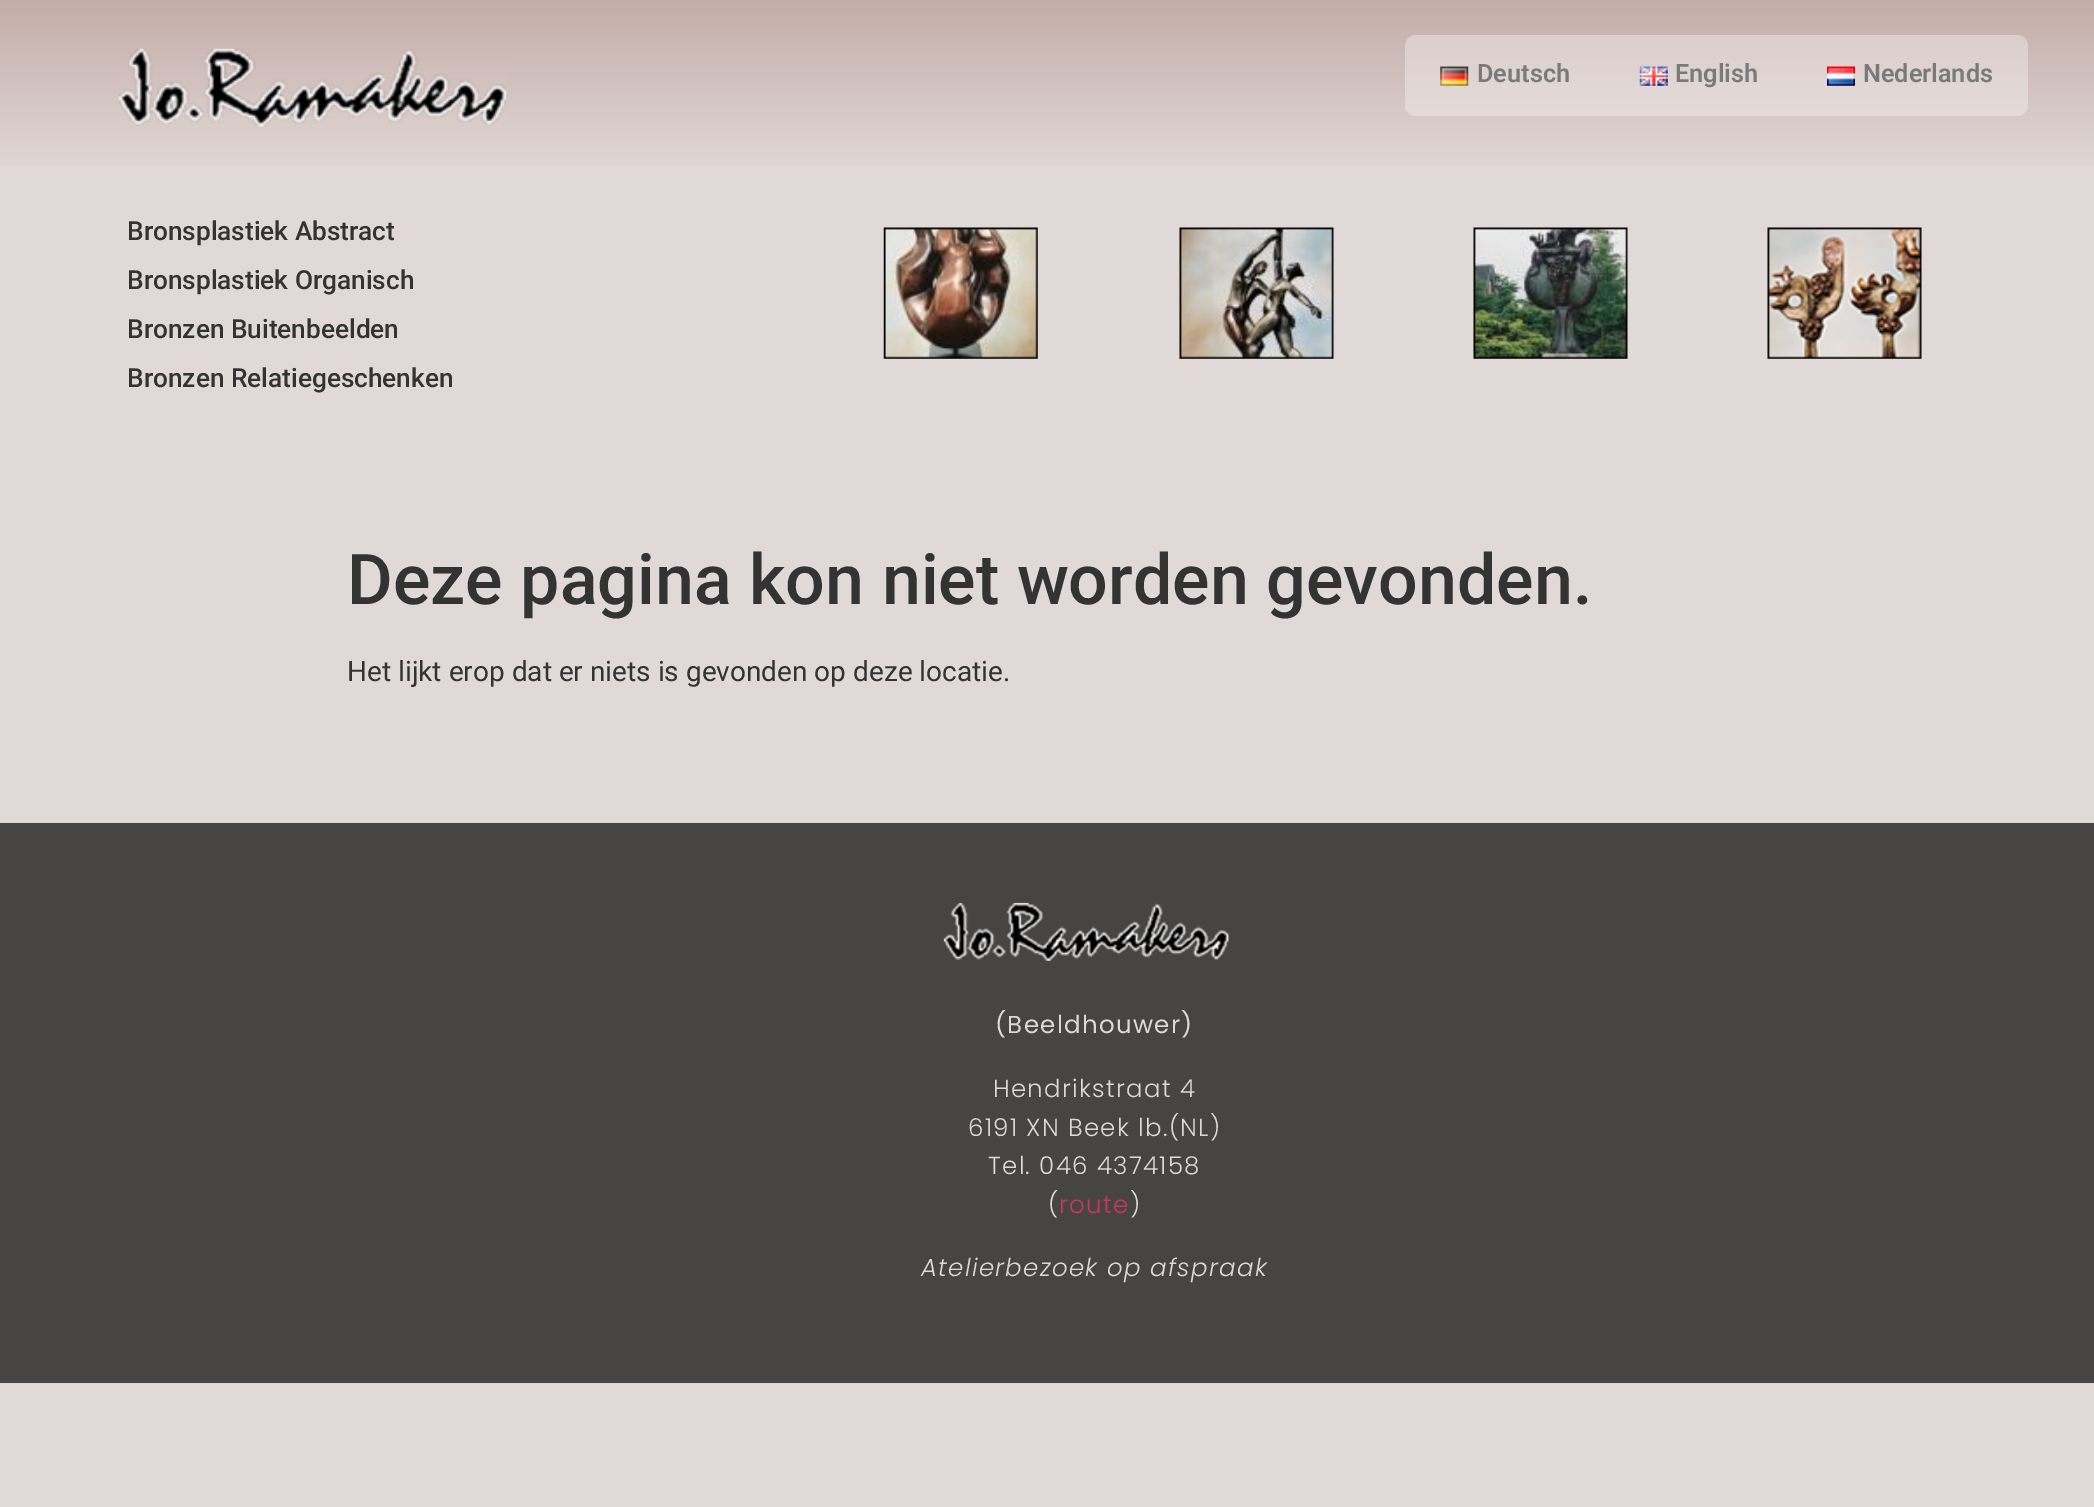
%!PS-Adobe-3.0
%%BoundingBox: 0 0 2094 1507
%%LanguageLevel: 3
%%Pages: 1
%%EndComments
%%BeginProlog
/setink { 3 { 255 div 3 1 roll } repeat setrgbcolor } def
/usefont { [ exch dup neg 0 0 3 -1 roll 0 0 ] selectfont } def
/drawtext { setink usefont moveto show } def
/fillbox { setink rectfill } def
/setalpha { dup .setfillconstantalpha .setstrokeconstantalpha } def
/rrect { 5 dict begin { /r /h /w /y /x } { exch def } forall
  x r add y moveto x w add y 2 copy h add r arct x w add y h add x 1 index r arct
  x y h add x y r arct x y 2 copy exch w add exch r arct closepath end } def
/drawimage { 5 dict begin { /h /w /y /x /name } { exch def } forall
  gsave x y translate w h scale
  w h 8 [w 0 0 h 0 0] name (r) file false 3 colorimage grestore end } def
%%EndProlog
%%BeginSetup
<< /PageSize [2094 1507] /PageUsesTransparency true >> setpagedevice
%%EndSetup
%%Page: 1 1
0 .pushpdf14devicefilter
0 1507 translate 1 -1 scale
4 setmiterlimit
0 0 2094 1507 225 217 215 fillbox
gsave 0 0 moveto 2094 0 lineto 2094 166 lineto 0 166 lineto closepath clip newpath
<< /ShadingType 2 /ColorSpace /DeviceRGB /Coords [1047 0 1047 175] /Extend [true true] /Function << /FunctionType 2 /Domain [0 1] /C0 [0.769 0.678 0.659] /C1 [0.882 0.851 0.843] /N 1 >> >> shfill grestore
(assets/img1.rgb) 118 48 389 79 drawimage
0.33 setalpha
255 255 255 setink
1405 35 623 81 11 rrect fill
1 setalpha
(assets/img2.rgb) 1440 66 29 20 drawimage
(Deutsch) 1477 82 /Roboto-SemiBold 25.25 122 122 122 drawtext
(assets/img3.rgb) 1639 66 29 20 drawimage
(English) 1675 82 /Roboto-SemiBold 25.25 122 122 122 drawtext
(assets/img4.rgb) 1827 66 28 20 drawimage
(Nederlands) 1863 82 /Roboto-SemiBold 25.25 122 122 122 drawtext
(Bronsplastiek Abstract) 127 240 /Roboto-Medium 26.25 51 51 51 drawtext
(Bronsplastiek Organisch) 127 289 /Roboto-Medium 26.25 51 51 51 drawtext
(Bronzen Buitenbeelden) 127 338 /Roboto-Medium 26.25 51 51 51 drawtext
(Bronzen Relatiegeschenken) 127 387 /Roboto-Medium 26.25 51 51 51 drawtext
(assets/img5.rgb) 883 227 155 132 drawimage
(assets/img6.rgb) 1179 227 155 132 drawimage
(assets/img7.rgb) 1473 227 155 132 drawimage
(assets/img8.rgb) 1767 227 155 132 drawimage
(Deze pagina kon niet worden gevonden.) 347 604 /Roboto-Medium 70 51 51 51 drawtext
(Het lijkt erop dat er niets is gevonden op deze locatie.) 347 681 /Roboto-Regular 28 51 51 51 drawtext
0 823 2094 560 71 69 67 fillbox
(assets/img9.rgb) 943 902 286 59 drawimage
/Poppins-Regular 24.5 usefont
218 218 218 setink
995 1033 moveto 1.3 0 (\(Beeldhouwer\)) ashow
/Poppins-Light 24.5 usefont
993 1097 moveto 1.3 0 (Hendrikstraat 4) ashow
968 1136 moveto 1.3 0 (6191 XN Beek lb.\(NL\)) ashow
988 1174 moveto 1.3 0 (Tel. 046 4374158) ashow
1048 1213 moveto 1.3 0 (\() ashow
204 51 102 setink
1059 1213 moveto 1.3 0 (route) ashow
218 218 218 setink
1130 1213 moveto 1.3 0 (\)) ashow
/Poppins-LightItalic 24.5 usefont
921 1276 moveto 1.3 0 (Atelierbezoek op afspraak) ashow
.poppdf14devicefilter showpage
%%EOF
